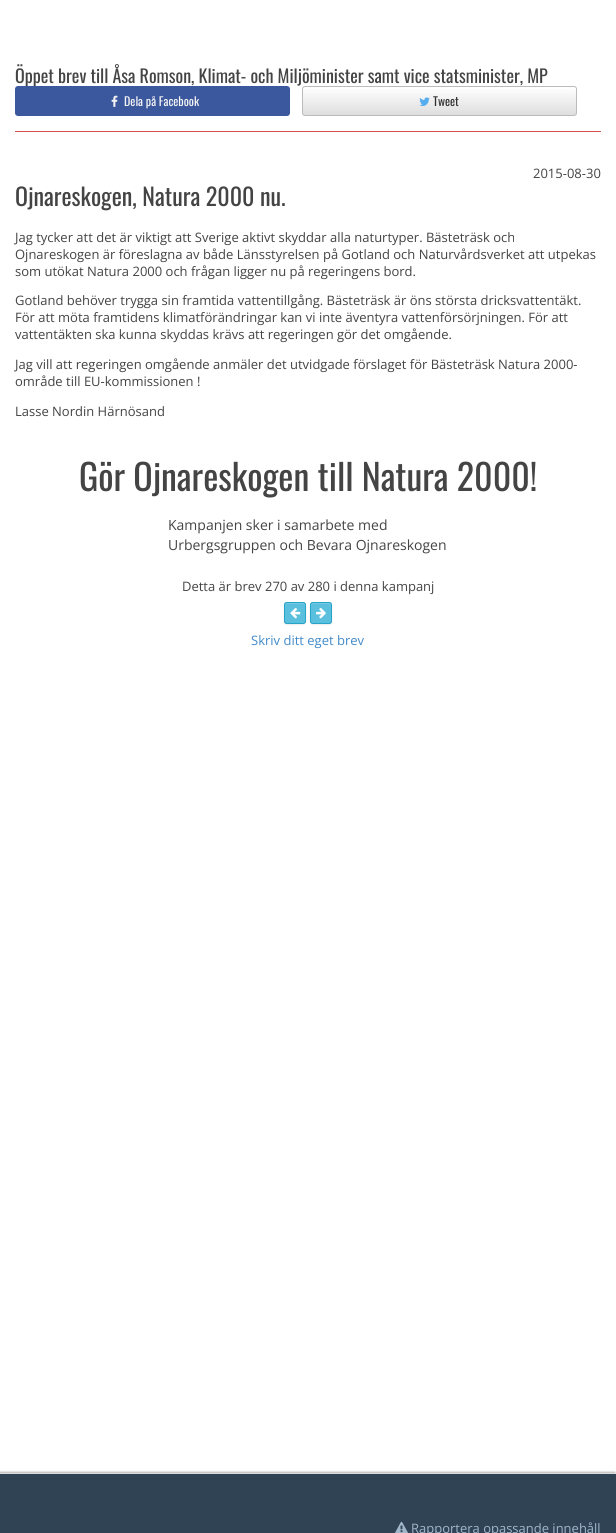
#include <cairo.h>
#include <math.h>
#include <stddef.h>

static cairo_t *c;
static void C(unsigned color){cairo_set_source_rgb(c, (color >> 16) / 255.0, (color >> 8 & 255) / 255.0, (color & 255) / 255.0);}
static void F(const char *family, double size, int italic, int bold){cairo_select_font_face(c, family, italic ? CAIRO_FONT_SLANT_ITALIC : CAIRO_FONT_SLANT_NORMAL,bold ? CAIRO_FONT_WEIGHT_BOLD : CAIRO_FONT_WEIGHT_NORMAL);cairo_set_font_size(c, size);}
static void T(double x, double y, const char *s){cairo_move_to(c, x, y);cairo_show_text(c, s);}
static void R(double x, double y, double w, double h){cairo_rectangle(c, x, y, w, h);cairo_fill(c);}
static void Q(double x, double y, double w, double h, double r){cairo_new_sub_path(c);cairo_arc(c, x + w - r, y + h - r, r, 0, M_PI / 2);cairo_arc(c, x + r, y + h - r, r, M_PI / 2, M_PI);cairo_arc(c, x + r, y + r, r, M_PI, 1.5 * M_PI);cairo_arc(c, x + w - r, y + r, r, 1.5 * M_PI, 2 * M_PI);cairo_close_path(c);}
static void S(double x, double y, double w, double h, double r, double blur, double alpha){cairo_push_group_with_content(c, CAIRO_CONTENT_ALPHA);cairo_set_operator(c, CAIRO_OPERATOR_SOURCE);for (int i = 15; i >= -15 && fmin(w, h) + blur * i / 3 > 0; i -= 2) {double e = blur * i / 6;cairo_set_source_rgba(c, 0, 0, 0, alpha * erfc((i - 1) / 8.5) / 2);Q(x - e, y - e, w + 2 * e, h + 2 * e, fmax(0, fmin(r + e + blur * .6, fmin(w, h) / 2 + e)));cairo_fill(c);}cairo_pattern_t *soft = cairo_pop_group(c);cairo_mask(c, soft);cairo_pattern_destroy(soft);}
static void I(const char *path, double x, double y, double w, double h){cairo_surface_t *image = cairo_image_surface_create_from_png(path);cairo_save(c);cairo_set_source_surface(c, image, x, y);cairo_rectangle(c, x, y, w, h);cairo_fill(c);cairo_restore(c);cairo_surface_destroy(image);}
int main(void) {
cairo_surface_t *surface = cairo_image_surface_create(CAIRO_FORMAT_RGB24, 616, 1533);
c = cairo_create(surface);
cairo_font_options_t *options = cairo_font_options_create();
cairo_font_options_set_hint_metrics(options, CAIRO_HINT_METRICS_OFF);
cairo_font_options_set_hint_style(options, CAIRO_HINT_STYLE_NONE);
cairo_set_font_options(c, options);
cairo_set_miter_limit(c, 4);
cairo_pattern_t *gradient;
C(0xffffff);
cairo_paint(c);
C(0xd74b4b);
R(15,131,586,1);
F("Oswald",18,0,0);
C(0x444444);
T(15,83,"Öppet brev till Åsa Romson, Klimat- och Miljöminister samt vice statsminister, MP");
C(0x3b579d);
Q(15,86,275,30,3);
cairo_fill(c);
I("1.png",111,95,7,12);
F("Oswald",12,0,0);
C(0xf4f4f4);
T(124,106,"Dela på Facebook");
gradient = cairo_pattern_create_linear(440,87,440,115);
cairo_pattern_add_color_stop_rgba(gradient,0,1,1,1,1);
cairo_pattern_add_color_stop_rgba(gradient,1,0.871,0.871,0.871,1);
cairo_set_source(c,gradient);
cairo_pattern_destroy(gradient);
R(303,89,273,26);
Q(302.5,86.5,274,29,2.5);
C(0xbbbbbb);
cairo_set_line_width(c,1);
cairo_stroke(c);
I("2.png",419,97,11,9);
C(0x333333);
T(433,106,"Tweet");
F("Open Sans",13,0,0);
C(0x444444);
T(533,178,"2015-08-30");
F("Oswald",24,0,0);
T(15,206,"Ojnareskogen, Natura 2000 nu.");
F("Open Sans",13,0,0);
T(15,242,"Jag tycker att det är viktigt att Sverige aktivt skyddar alla naturtyper. Bästeträsk och");
T(15,259,"Ojnareskogen är föreslagna av både Länsstyrelsen på Gotland och Naturvårdsverket att utpekas");
T(15,276,"som utökat Natura 2000 och frågan ligger nu på regeringens bord.");
T(15,305,"Gotland behöver trygga sin framtida vattentillgång. Bästeträsk är öns största dricksvattentäkt.");
T(15,322,"För att möta framtidens klimatförändringar kan vi inte äventyra vattenförsörjningen. För att");
T(15,339,"vattentäkten ska kunna skyddas krävs att regeringen gör det omgående.");
T(15,369,"Jag vill att regeringen omgående anmäler det utvidgade förslaget för Bästeträsk Natura 2000-");
T(15,386,"område till EU-kommissionen !");
T(15,416,"Lasse Nordin Härnösand");
F("Oswald",36,0,0);
T(79,491,"Gör Ojnareskogen till Natura 2000!");
F("Open Sans",14,0,0);
T(168,530,"Kampanjen sker i samarbete med");
T(168,550,"Urbergsgruppen och Bevara Ojnareskogen");
F("Open Sans",13,0,0);
T(182,591,"Detta är brev 270 av 280 i denna kampanj");
C(0x000000);
S(284,603,22,22,3,.5,.07);
C(0x5bc0de);
Q(284,602,22,22,3);
cairo_fill(c);
C(0x74c9e3);
cairo_new_path(c);
cairo_move_to(c,287,604);
cairo_line_to(c,300,604);
cairo_curve_to(c,303,604,304.5,604.5,305,606);
cairo_curve_to(c,305,602.5,303.5,603,300.5,603);
cairo_line_to(c,289.5,603);
cairo_curve_to(c,285.5,603,285,603,285,607);
cairo_curve_to(c,285,605.5,286,604,287,604);
cairo_close_path(c);
cairo_fill(c);
Q(284.5,602.5,21,21,2.5);
C(0x28a4c9);
cairo_stroke(c);
I("3.png",290,608,11,11);
C(0x000000);
S(310,603,22,22,3,.5,.07);
C(0x5bc0de);
Q(310,602,22,22,3);
cairo_fill(c);
C(0x74c9e3);
cairo_new_path(c);
cairo_move_to(c,313,604);
cairo_line_to(c,326,604);
cairo_curve_to(c,329,604,330.5,604.5,331,606);
cairo_curve_to(c,331,602.5,329.5,603,326.5,603);
cairo_line_to(c,315.5,603);
cairo_curve_to(c,311.5,603,311,603,311,607);
cairo_curve_to(c,311,605.5,312,604,313,604);
cairo_close_path(c);
cairo_fill(c);
Q(310.5,602.5,21,21,2.5);
C(0x28a4c9);
cairo_stroke(c);
I("4.png",316,608,10,11);
C(0x428bca);
T(251,645,"Skriv ditt eget brev");
C(0x000000);
S(-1,1472,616,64,0,1,.3);
C(0x2f4354);
R(0,1474,616,59);
C(0xdddddd);
R(0,1473,616,1);
I("5.png",395,1521,13,12);
C(0xa0b6c9);
T(411,1533,"Rapportera opassande innehåll");
cairo_surface_write_to_png(surface, "o.png");
cairo_font_options_destroy(options);
cairo_destroy(c);
cairo_surface_destroy(surface);
return 0;
}
